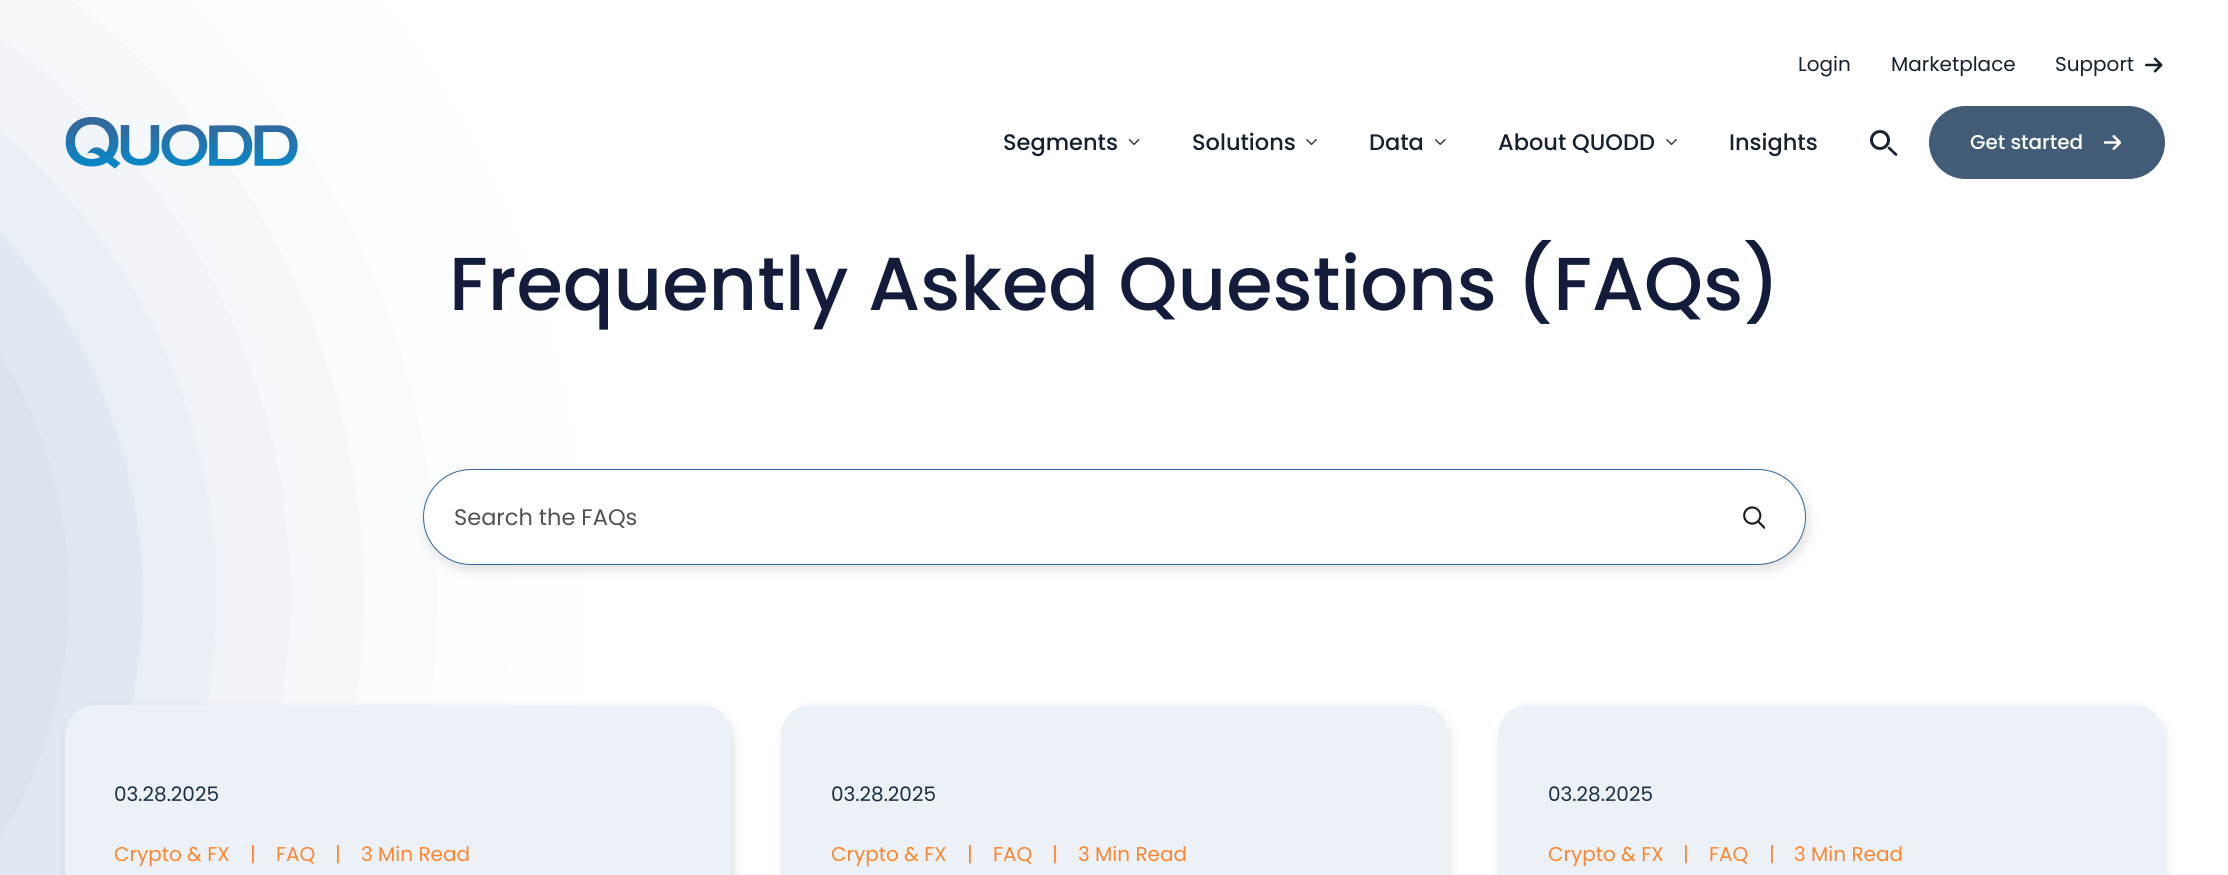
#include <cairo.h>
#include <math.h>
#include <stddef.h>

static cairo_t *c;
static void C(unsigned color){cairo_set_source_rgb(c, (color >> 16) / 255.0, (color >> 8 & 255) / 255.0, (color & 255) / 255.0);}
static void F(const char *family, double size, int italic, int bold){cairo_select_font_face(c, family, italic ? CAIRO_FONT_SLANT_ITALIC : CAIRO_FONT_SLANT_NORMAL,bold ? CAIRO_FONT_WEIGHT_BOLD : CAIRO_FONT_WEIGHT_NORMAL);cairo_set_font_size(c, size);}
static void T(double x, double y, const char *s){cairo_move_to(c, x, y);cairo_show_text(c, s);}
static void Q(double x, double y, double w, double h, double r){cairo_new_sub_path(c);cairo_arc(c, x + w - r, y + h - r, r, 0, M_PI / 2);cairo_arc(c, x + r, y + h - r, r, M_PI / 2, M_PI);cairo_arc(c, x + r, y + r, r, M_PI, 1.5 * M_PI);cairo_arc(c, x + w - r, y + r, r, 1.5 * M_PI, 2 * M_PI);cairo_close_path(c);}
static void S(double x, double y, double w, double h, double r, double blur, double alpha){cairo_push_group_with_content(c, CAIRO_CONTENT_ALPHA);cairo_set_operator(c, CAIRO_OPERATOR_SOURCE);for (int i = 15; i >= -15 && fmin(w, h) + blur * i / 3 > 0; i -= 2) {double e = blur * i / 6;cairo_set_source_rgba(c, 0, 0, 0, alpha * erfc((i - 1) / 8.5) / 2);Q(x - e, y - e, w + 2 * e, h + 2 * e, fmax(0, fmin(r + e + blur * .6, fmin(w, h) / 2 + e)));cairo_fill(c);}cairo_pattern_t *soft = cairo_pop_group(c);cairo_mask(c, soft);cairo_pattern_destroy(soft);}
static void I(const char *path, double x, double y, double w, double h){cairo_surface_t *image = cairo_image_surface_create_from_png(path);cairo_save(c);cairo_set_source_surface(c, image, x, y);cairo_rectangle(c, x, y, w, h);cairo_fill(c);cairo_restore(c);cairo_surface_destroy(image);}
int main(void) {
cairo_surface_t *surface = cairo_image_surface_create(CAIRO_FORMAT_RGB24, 2228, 875);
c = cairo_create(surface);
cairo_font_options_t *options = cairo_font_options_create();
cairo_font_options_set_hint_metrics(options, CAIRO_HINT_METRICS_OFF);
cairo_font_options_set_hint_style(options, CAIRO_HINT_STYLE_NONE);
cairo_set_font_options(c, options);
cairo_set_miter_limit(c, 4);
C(0xffffff);
cairo_paint(c);
F("Poppins",20,0,0);
C(0x15212e);
T(1798,71,"Login");
T(1891,71,"Marketplace");
T(2055,71,"Support");
I("1.png",2145,57,18,16);
C(0xc2d3e3);
S(-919,99,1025,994,497,221,1);
I("2.png",65,117,233,52);
F("Poppins Medium",22.5,0,0);
C(0x15212e);
T(1003,150,"Segments");
I("3.png",1128,139,12,6);
T(1192,150,"Solutions");
I("4.png",1306,139,11,6);
T(1369,150,"Data");
I("5.png",1435,139,11,6);
T(1498,150,"About QUODD");
I("4.png",1666,139,11,6);
T(1729,150,"Insights");
cairo_new_path(c);
cairo_arc(c,1880,140,8.5,0,2 * M_PI);
cairo_set_line_width(c,3);
cairo_stroke(c);
cairo_new_path(c);
cairo_move_to(c,1888,147);
cairo_curve_to(c,1889.5,145.5,1892.5,149.5,1893.5,150.5);
cairo_curve_to(c,1894,151,1898.5,154,1897,155.5);
cairo_curve_to(c,1895.5,157,1892.5,153,1891.5,152);
cairo_curve_to(c,1891,151.5,1886.5,148.5,1888,147);
cairo_close_path(c);
cairo_fill(c);
C(0x425b76);
Q(1929.5,106.5,235,72,36);
cairo_fill_preserve(c);
cairo_set_line_width(c,1);
cairo_stroke(c);
F("Poppins Medium",20,0,0);
C(0xffffff);
T(1970,149,"Get started");
I("6.png",2104,135,17,15);
F("Poppins Medium",75,0,0);
C(0x131c3a);
T(449,310,"Frequently Asked Questions (FAQs)");
C(0x000000);
S(425,474,1384,96,48,5.5,.12);
C(0xffffff);
Q(423.5,469.5,1382,95,47.5);
cairo_fill_preserve(c);
C(0x346796);
cairo_stroke(c);
F("Poppins",22.5,0,0);
C(0x53514f);
T(454,525,"Search the FAQs");
I("7.png",1743,506,22,23);
C(0x000000);
S(68,710,666,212,30,5.5,.12);
C(0xebf1f6);
Q(65,705,666,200,30);
cairo_fill(c);
F("Poppins",20,0,0);
C(0x182f45);
T(114,801,"03.28.2025");
C(0xfe852d);
T(114,861,"Crypto & FX");
T(250,861,"|");
T(276,861,"FAQ");
T(335,861,"|");
T(361,861,"3 Min Read");
C(0x000000);
S(784,710,666,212,30,5.5,.12);
C(0xebf1f6);
Q(781,705,667,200,30);
cairo_fill(c);
C(0x182f45);
T(831,801,"03.28.2025");
C(0xfe852d);
T(831,861,"Crypto & FX");
T(967,861,"|");
T(993,861,"FAQ");
T(1052,861,"|");
T(1078,861,"3 Min Read");
C(0x000000);
S(1500,710,666,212,30,5.5,.12);
C(0xebf1f6);
Q(1498,705,666,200,30);
cairo_fill(c);
C(0x182f45);
T(1548,801,"03.28.2025");
C(0xfe852d);
T(1548,861,"Crypto & FX");
T(1683,861,"|");
T(1709,861,"FAQ");
T(1769,861,"|");
T(1794,861,"3 Min Read");
cairo_surface_write_to_png(surface, "o.png");
cairo_font_options_destroy(options);
cairo_destroy(c);
cairo_surface_destroy(surface);
return 0;
}
